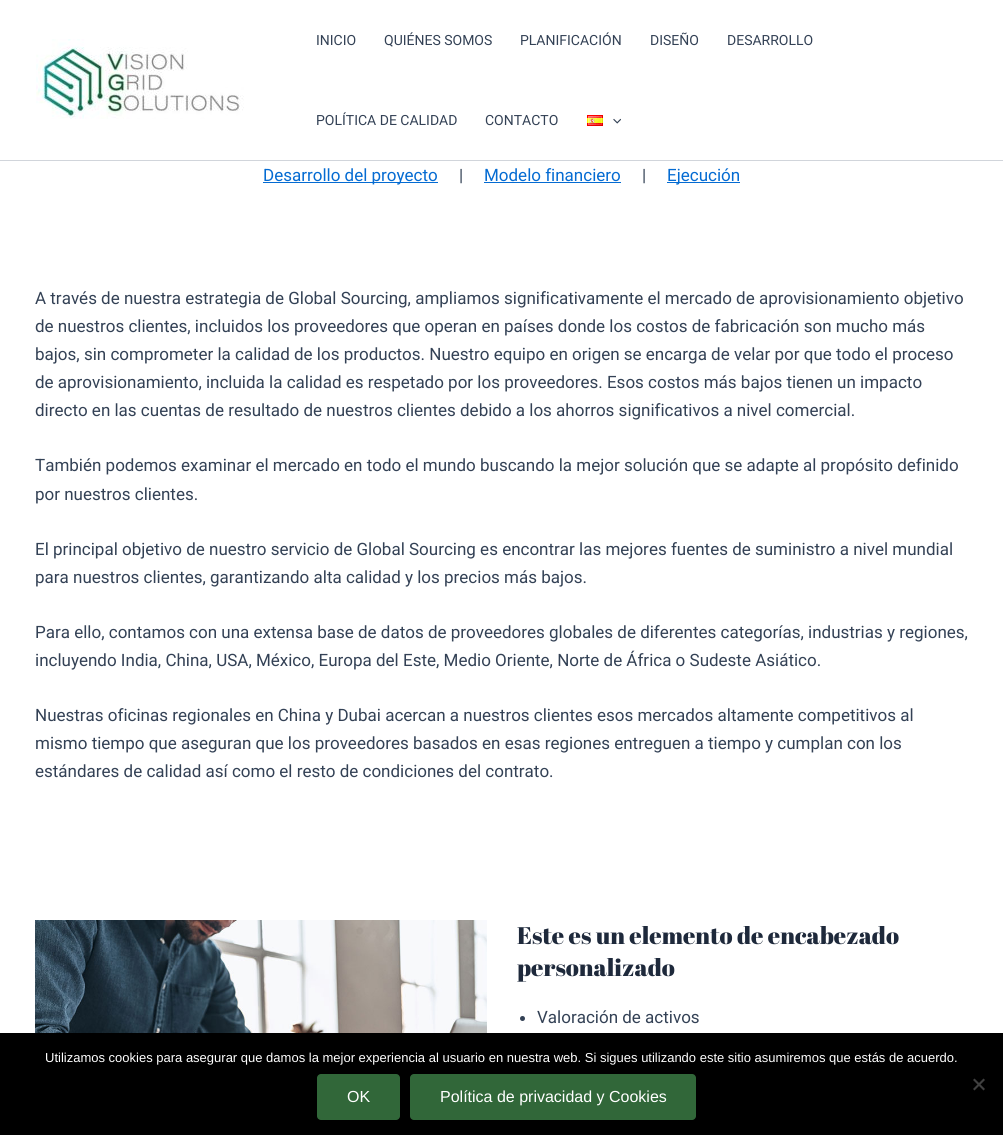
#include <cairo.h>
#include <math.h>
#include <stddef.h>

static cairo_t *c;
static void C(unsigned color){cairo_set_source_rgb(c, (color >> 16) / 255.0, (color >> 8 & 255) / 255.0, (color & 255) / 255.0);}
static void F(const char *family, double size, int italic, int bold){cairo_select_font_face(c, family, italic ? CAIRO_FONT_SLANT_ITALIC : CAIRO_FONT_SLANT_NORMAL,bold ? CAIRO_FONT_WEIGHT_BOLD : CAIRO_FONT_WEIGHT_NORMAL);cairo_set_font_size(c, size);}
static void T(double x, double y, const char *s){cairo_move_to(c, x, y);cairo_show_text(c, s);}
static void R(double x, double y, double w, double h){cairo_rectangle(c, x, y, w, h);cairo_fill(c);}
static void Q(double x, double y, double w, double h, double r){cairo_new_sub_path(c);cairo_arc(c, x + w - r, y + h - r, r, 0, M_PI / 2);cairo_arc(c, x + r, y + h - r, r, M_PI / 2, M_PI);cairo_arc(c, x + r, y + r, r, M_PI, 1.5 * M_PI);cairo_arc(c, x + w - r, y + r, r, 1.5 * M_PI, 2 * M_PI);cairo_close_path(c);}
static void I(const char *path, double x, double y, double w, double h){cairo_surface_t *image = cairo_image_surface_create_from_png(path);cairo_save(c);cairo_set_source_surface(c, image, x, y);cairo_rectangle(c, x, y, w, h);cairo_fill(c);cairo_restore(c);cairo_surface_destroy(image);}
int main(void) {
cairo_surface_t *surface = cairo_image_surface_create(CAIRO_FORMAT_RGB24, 1003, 1135);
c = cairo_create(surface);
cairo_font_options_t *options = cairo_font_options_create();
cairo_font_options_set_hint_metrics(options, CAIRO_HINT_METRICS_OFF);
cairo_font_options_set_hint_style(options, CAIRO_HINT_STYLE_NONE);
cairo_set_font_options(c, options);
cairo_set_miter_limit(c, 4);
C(0xffffff);
cairo_paint(c);
C(0xd1d5db);
R(0,160,1003,1);
I("1.png",36,39,208,80);
F("Roboto",14,0,0);
C(0x334155);
T(316,45,"INICIO");
T(384,45,"QUIÉNES SOMOS");
T(520,45,"PLANIFICACIÓN");
T(650,45,"DISEÑO");
T(727,45,"DESARROLLO");
T(316,125,"POLÍTICA DE CALIDAD");
T(485,125,"CONTACTO");
I("2.png",587,115,16,11);
I("3.png",613,118,8,6);
C(0x046bd2);
R(263,182,175,1);
F("Roboto",17,0,0);
T(263,181,"Desarrollo del proyecto");
C(0x334155);
T(459,181,"|");
C(0x046bd2);
T(484,181,"Modelo financiero");
R(484,182,137,1);
C(0x334155);
T(642,181,"|");
C(0x046bd2);
R(667,182,73,1);
T(667,181,"Ejecución");
C(0x334155);
T(35,304,"A través de nuestra estrategia de Global Sourcing, ampliamos significativamente el mercado de aprovisionamiento objetivo");
T(35,332,"de nuestros clientes, incluidos los proveedores que operan en países donde los costos de fabricación son mucho más");
T(35,360,"bajos, sin comprometer la calidad de los productos. Nuestro equipo en origen se encarga de velar por que todo el proceso");
T(35,388,"de aprovisionamiento, incluida la calidad es respetado por los proveedores. Esos costos más bajos tienen un impacto");
T(35,416,"directo en las cuentas de resultado de nuestros clientes debido a los ahorros significativos a nivel comercial.");
T(35,471,"También podemos examinar el mercado en todo el mundo buscando la mejor solución que se adapte al propósito definido");
T(35,500,"por nuestros clientes.");
T(35,555,"El principal objetivo de nuestro servicio de Global Sourcing es encontrar las mejores fuentes de suministro a nivel mundial");
T(35,583,"para nuestros clientes, garantizando alta calidad y los precios más bajos.");
T(35,638,"Para ello, contamos con una extensa base de datos de proveedores globales de diferentes categorías, industrias y regiones,");
T(35,666,"incluyendo India, China, USA, México, Europa del Este, Medio Oriente, Norte de África o Sudeste Asiático.");
T(35,721,"Nuestras oficinas regionales en China y Dubai acercan a nuestros clientes esos mercados altamente competitivos al");
T(35,749,"mismo tiempo que aseguran que los proveedores basados en esas regiones entreguen a tiempo y cumplan con los");
T(35,777,"estándares de calidad así como el resto de condiciones del contrato.");
I("4.png",35,920,452,113);
F("Abril Fatface",24,0,0);
C(0x1e293b);
T(517,944,"Este es un elemento de encabezado");
T(517,976,"personalizado");
C(0x334155);
cairo_new_path(c);
cairo_arc(c,522.5,1018.5,2.5,0,2 * M_PI);
cairo_fill(c);
F("Roboto",17,0,0);
T(537,1023,"Valoración de activos");
C(0x000000);
R(0,1033,1003,102);
F("Liberation Sans",13,0,0);
C(0xffffff);
T(45,1062,"Utilizamos cookies para asegurar que damos la mejor experiencia al usuario en nuestra web. Si sigues utilizando este sitio asumiremos que estás de acuerdo.");
C(0x404040);
cairo_new_path(c);
cairo_move_to(c,983.5,1078.5);
cairo_line_to(c,985,1080);
cairo_line_to(c,974.5,1090.5);
cairo_line_to(c,973,1089);
cairo_close_path(c);
cairo_fill(c);
cairo_new_path(c);
cairo_move_to(c,973,1080);
cairo_line_to(c,974.5,1078.5);
cairo_line_to(c,985,1089);
cairo_line_to(c,983.5,1090.5);
cairo_close_path(c);
cairo_fill(c);
C(0x316739);
Q(317,1074,83,46,4);
cairo_fill(c);
F("Liberation Sans",16,0,0);
C(0xffffff);
T(347,1102,"OK");
C(0x316739);
Q(410,1074,286,46,4);
cairo_fill(c);
C(0xffffff);
T(440,1102,"Política de privacidad y Cookies");
cairo_surface_write_to_png(surface, "o.png");
cairo_font_options_destroy(options);
cairo_destroy(c);
cairo_surface_destroy(surface);
return 0;
}
